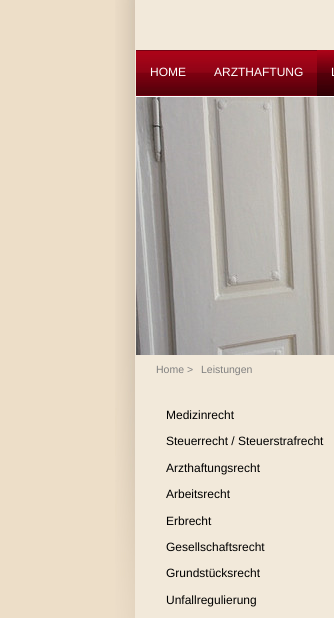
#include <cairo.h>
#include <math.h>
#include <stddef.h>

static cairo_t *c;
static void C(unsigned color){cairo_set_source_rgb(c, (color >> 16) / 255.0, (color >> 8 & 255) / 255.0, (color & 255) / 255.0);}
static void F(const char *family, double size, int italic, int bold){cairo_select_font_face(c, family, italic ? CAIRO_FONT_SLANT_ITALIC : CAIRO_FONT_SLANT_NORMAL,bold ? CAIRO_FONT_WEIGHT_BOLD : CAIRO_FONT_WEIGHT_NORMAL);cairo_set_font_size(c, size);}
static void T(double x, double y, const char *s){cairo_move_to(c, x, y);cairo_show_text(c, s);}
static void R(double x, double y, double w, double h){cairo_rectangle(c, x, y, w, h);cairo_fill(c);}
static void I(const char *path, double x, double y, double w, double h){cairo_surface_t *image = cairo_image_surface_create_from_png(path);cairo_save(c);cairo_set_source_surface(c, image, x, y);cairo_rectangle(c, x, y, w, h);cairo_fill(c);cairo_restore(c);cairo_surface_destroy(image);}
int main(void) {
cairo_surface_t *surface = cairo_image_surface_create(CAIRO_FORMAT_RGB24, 334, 618);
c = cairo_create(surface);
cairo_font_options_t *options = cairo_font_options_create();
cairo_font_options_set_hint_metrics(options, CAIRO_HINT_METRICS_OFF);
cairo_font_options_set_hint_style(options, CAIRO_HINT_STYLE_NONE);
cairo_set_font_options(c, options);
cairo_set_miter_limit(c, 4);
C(0xeddec8);
cairo_paint(c);
I("1.png",115,0,219,618);
I("2.png",136,50,181,46);
F("Liberation Sans",12,0,0);
C(0xffffff);
T(150,76,"HOME");
T(214,76,"ARZTHAFTUNG");
I("3.png",317,50,17,46);
T(331,76,"L");
R(136,96,198,1);
I("4.png",136,97,198,258);
F("Liberation Sans",10.5,0,0);
C(0x808080);
T(156,373,"Home >");
T(201,373,"Leistungen");
F("Liberation Sans",12,0,0);
C(0x000000);
T(166,419,"Medizinrecht");
T(166,445,"Steuerrecht / Steuerstrafrecht");
T(166,472,"Arzthaftungsrecht");
T(166,498,"Arbeitsrecht");
T(166,525,"Erbrecht");
T(166,551,"Gesellschaftsrecht");
T(166,577,"Grundstücksrecht");
T(166,604,"Unfallregulierung");
cairo_surface_write_to_png(surface, "o.png");
cairo_font_options_destroy(options);
cairo_destroy(c);
cairo_surface_destroy(surface);
return 0;
}
